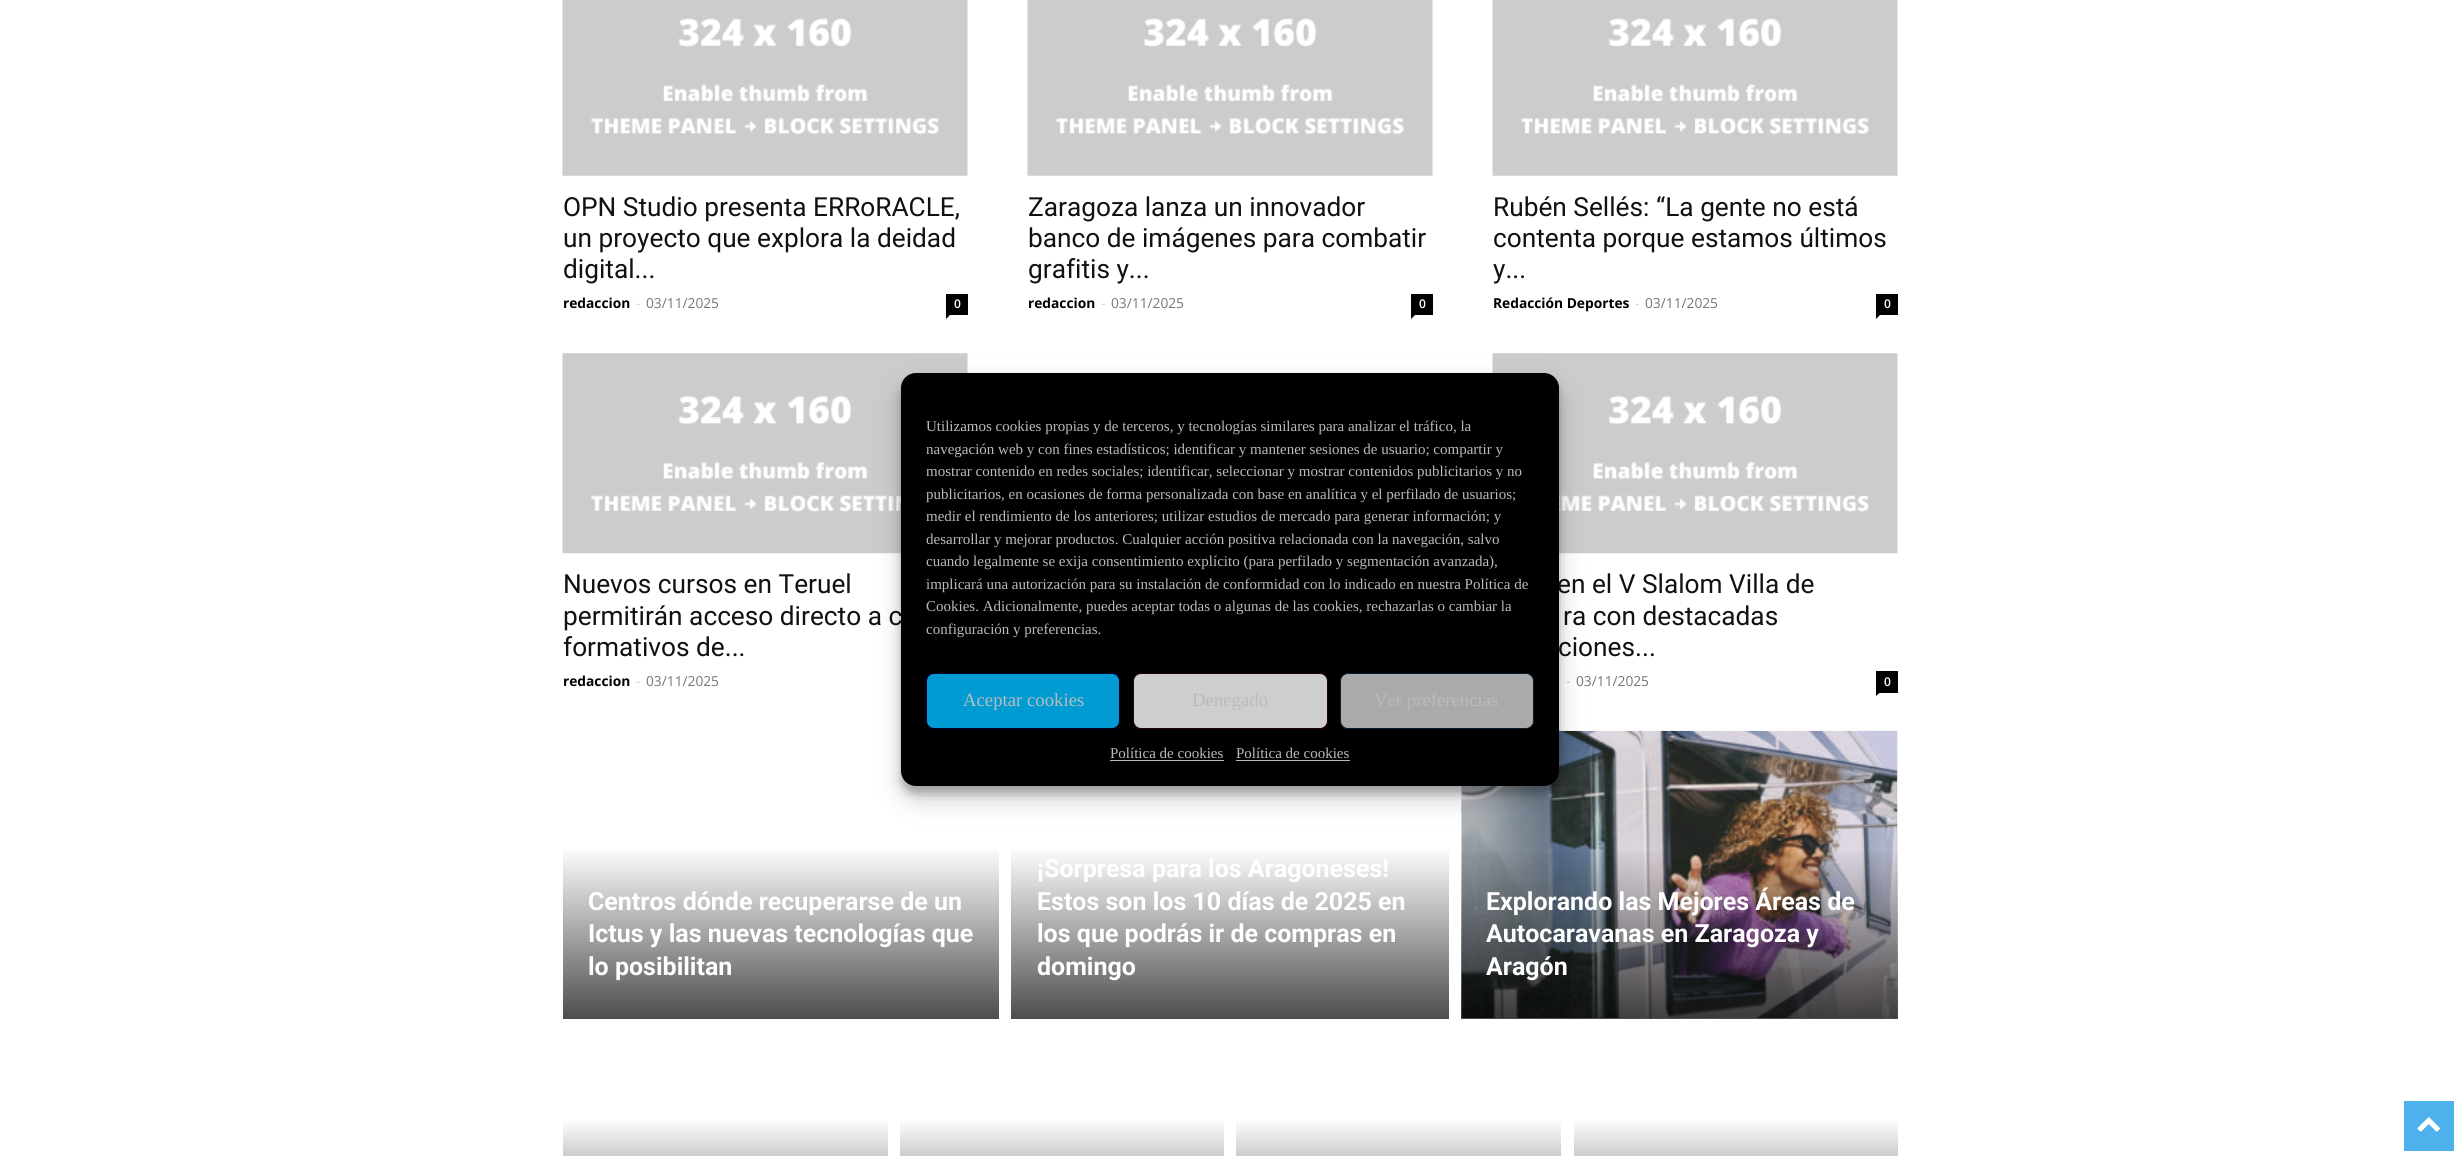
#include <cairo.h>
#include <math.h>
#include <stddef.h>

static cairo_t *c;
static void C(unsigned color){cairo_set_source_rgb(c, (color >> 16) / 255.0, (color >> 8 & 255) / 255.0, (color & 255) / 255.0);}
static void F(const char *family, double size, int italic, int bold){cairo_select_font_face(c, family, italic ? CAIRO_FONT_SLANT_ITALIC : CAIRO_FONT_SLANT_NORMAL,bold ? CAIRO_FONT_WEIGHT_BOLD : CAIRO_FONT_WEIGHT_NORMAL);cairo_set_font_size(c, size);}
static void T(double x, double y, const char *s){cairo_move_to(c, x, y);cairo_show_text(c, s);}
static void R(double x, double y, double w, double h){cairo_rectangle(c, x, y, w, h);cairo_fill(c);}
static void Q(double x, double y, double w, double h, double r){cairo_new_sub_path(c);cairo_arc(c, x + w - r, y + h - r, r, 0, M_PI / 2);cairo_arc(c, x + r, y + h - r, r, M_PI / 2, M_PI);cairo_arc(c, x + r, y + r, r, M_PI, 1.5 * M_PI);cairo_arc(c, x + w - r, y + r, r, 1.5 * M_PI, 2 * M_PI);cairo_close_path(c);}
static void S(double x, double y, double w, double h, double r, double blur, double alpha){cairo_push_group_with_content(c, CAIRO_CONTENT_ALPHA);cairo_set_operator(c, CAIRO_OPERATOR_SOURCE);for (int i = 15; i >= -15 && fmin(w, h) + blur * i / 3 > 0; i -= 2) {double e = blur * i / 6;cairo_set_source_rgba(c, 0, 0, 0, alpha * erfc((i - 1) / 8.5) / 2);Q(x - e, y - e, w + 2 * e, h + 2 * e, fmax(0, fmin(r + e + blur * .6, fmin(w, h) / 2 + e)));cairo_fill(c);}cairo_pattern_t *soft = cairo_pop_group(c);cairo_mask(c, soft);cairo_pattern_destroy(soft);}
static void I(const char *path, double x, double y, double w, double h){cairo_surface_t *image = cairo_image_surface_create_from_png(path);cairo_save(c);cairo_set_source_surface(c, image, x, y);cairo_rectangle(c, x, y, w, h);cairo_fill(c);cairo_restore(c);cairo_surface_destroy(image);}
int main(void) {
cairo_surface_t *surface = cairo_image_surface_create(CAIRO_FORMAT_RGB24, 2460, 1156);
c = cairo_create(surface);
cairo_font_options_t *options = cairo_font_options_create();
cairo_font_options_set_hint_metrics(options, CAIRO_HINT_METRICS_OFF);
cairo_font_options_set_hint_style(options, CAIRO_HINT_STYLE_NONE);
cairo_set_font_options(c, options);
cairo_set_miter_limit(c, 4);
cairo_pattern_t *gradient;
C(0xffffff);
cairo_paint(c);
I("1.png",562,0,406,176);
F("Roboto",26.25,0,0);
C(0x111111);
T(563,216,"OPN Studio presenta ERRoRACLE,");
T(563,247,"un proyecto que explora la deidad");
T(563,278,"digital...");
F("Open Sans",13.75,0,1);
C(0x000000);
T(563,308,"redaccion");
F("Open Sans",13.75,0,0);
C(0xcccccc);
T(636,308,"-");
C(0x767676);
T(646,308,"03/11/2025");
C(0x000000);
R(946,294,22,21);
F("Open Sans SemiBold",12,0,0);
C(0xffffff);
T(954,308,"0");
C(0x000000);
cairo_new_path(c);
cairo_move_to(c,946,315);
cairo_line_to(c,950,315);
cairo_line_to(c,946,319);
cairo_close_path(c);
cairo_fill(c);
I("2.png",1027,0,406,176);
F("Roboto",26.25,0,0);
C(0x111111);
T(1028,216,"Zaragoza lanza un innovador");
T(1028,247,"banco de imágenes para combatir");
T(1028,278,"grafitis y...");
F("Open Sans",13.75,0,1);
C(0x000000);
T(1028,308,"redaccion");
F("Open Sans",13.75,0,0);
C(0xcccccc);
T(1101,308,"-");
C(0x767676);
T(1111,308,"03/11/2025");
C(0x000000);
R(1411,294,22,21);
F("Open Sans SemiBold",12,0,0);
C(0xffffff);
T(1419,308,"0");
C(0x000000);
cairo_new_path(c);
cairo_move_to(c,1411,315);
cairo_line_to(c,1415,315);
cairo_line_to(c,1411,319);
cairo_close_path(c);
cairo_fill(c);
I("3.png",1492,0,406,176);
F("Roboto",26.25,0,0);
C(0x111111);
T(1493,216,"Rubén Sellés: “La gente no está");
T(1493,247,"contenta porque estamos últimos");
T(1493,278,"y...");
F("Open Sans",13.75,0,1);
C(0x000000);
T(1493,308,"Redacción Deportes");
F("Open Sans",13.75,0,0);
C(0xcccccc);
T(1635,308,"-");
C(0x767676);
T(1645,308,"03/11/2025");
C(0x000000);
R(1876,294,22,21);
F("Open Sans SemiBold",12,0,0);
C(0xffffff);
T(1884,308,"0");
C(0x000000);
cairo_new_path(c);
cairo_move_to(c,1876,315);
cairo_line_to(c,1880,315);
cairo_line_to(c,1876,319);
cairo_close_path(c);
cairo_fill(c);
I("4.png",562,353,406,201);
F("Roboto",26.25,0,0);
C(0x111111);
T(563,593,"Nuevos cursos en Teruel");
T(563,625,"permitirán acceso directo a c");
T(563,656,"formativos de...");
F("Open Sans",13.75,0,1);
C(0x000000);
T(563,686,"redaccion");
F("Open Sans",13.75,0,0);
C(0xcccccc);
T(636,686,"-");
C(0x767676);
T(646,686,"03/11/2025");
I("5.png",1492,353,406,201);
F("Roboto",26.25,0,0);
C(0x111111);
T(1557,593,"en el V Slalom Villa de");
T(1563,625,"ra con destacadas");
T(1558,656,"ciones...");
F("Open Sans",13.75,0,0);
C(0xcccccc);
T(1566,686,"-");
C(0x767676);
T(1576,686,"03/11/2025");
C(0x000000);
R(1876,671,22,22);
F("Open Sans SemiBold",12,0,0);
C(0xffffff);
T(1884,686,"0");
C(0x000000);
cairo_new_path(c);
cairo_move_to(c,1876,692.5);
cairo_line_to(c,1880,692.5);
cairo_line_to(c,1876,696);
cairo_close_path(c);
cairo_fill(c);
gradient = cairo_pattern_create_linear(781,1019,781,731);
cairo_pattern_add_color_stop_rgba(gradient,0,0.302,0.302,0.302,1);
cairo_pattern_add_color_stop_rgba(gradient,.6,1,1,1,1);
cairo_pattern_add_color_stop_rgba(gradient,1,1,1,1,1);
cairo_set_source(c,gradient);
cairo_pattern_destroy(gradient);
R(563,849,436,170);
F("Roboto",25,0,1);
C(0xffffff);
T(588,910,"Centros dónde recuperarse de un");
T(588,942,"Ictus y las nuevas tecnologías que");
T(588,975,"lo posibilitan");
gradient = cairo_pattern_create_linear(1230,1019,1230,731);
cairo_pattern_add_color_stop_rgba(gradient,0,0.302,0.302,0.302,1);
cairo_pattern_add_color_stop_rgba(gradient,.6,1,1,1,1);
cairo_pattern_add_color_stop_rgba(gradient,1,1,1,1,1);
cairo_set_source(c,gradient);
cairo_pattern_destroy(gradient);
R(1011,849,438,170);
C(0xffffff);
T(1037,877,"¡Sorpresa para los Aragoneses!");
T(1037,910,"Estos son los 10 días de 2025 en");
T(1037,942,"los que podrás ir de compras en");
T(1037,975,"domingo");
I("6.png",1461,730,437,289);
gradient = cairo_pattern_create_linear(1679,1019,1679,731);
cairo_pattern_add_color_stop_rgba(gradient,0,0,0,0,.7);
cairo_pattern_add_color_stop_rgba(gradient,.6,0,0,0,0);
cairo_pattern_add_color_stop_rgba(gradient,1,0,0,0,0);
cairo_set_source(c,gradient);
cairo_pattern_destroy(gradient);
R(1461,852,437,167);
C(0xffffff);
T(1486,910,"Explorando las Mejores Áreas de");
T(1486,942,"Autocaravanas en Zaragoza y");
T(1486,975,"Aragón");
gradient = cairo_pattern_create_linear(725,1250,725,1031);
cairo_pattern_add_color_stop_rgba(gradient,0,0.302,0.302,0.302,1);
cairo_pattern_add_color_stop_rgba(gradient,.6,1,1,1,1);
cairo_pattern_add_color_stop_rgba(gradient,1,1,1,1,1);
cairo_set_source(c,gradient);
cairo_pattern_destroy(gradient);
R(563,1120,325,36);
gradient = cairo_pattern_create_linear(1062,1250,1062,1031);
cairo_pattern_add_color_stop_rgba(gradient,0,0.302,0.302,0.302,1);
cairo_pattern_add_color_stop_rgba(gradient,.6,1,1,1,1);
cairo_pattern_add_color_stop_rgba(gradient,1,1,1,1,1);
cairo_set_source(c,gradient);
cairo_pattern_destroy(gradient);
R(900,1120,324,36);
gradient = cairo_pattern_create_linear(1399,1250,1399,1031);
cairo_pattern_add_color_stop_rgba(gradient,0,0.302,0.302,0.302,1);
cairo_pattern_add_color_stop_rgba(gradient,.6,1,1,1,1);
cairo_pattern_add_color_stop_rgba(gradient,1,1,1,1,1);
cairo_set_source(c,gradient);
cairo_pattern_destroy(gradient);
R(1236,1120,325,36);
gradient = cairo_pattern_create_linear(1736,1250,1736,1031);
cairo_pattern_add_color_stop_rgba(gradient,0,0.302,0.302,0.302,1);
cairo_pattern_add_color_stop_rgba(gradient,.6,1,1,1,1);
cairo_pattern_add_color_stop_rgba(gradient,1,1,1,1,1);
cairo_set_source(c,gradient);
cairo_pattern_destroy(gradient);
R(1574,1120,324,36);
C(0x000000);
S(901,380,658,414,15,4,.23);
S(901,385,658,414,15,12.5,.19);
C(0x000000);
Q(901,373,658,413,15);
cairo_fill(c);
F("Liberation Serif",15,0,0);
C(0xbbbbbb);
T(926,431,"Utilizamos cookies propias y de terceros, y tecnologías similares para analizar el tráfico, la");
T(926,454,"navegación web y con fines estadísticos; identificar y mantener sesiones de usuario; compartir y");
T(926,476,"mostrar contenido en redes sociales; identificar, seleccionar y mostrar contenidos publicitarios y no");
T(926,499,"publicitarios, en ocasiones de forma personalizada con base en analítica y el perfilado de usuarios;");
T(926,521,"medir el rendimiento de los anteriores; utilizar estudios de mercado para generar información; y");
T(926,544,"desarrollar y mejorar productos. Cualquier acción positiva relacionada con la navegación, salvo");
T(926,566,"cuando legalmente se exija consentimiento explícito (para perfilado y segmentación avanzada),");
T(926,589,"implicará una autorización para su instalación de conformidad con lo indicado en nuestra Política de");
T(926,611,"Cookies. Adicionalmente, puedes aceptar todas o algunas de las cookies, rechazarlas o cambiar la");
T(926,634,"configuración y preferencias.");
C(0x009bd3);
Q(926.5,673.5,193,55,7.5);
cairo_fill_preserve(c);
C(0x090030);
cairo_set_line_width(c,1);
cairo_stroke(c);
F("Liberation Serif",18.75,0,0);
C(0xbbbbbb);
T(963,706,"Aceptar cookies");
C(0xcecece);
Q(1133.5,673.5,194,55,7.5);
cairo_fill_preserve(c);
C(0x230200);
cairo_stroke(c);
C(0xbbbbbb);
T(1192,706,"Denegado");
C(0xaaaaaa);
Q(1340.5,673.5,193,55,7.5);
cairo_fill_preserve(c);
C(0x081e2e);
cairo_stroke(c);
C(0xbbbbbb);
T(1374,706,"Ver preferencias");
F("Liberation Serif",15,0,0);
T(1110,758,"Política de cookies");
R(1110,760,114,1);
T(1236,758,"Política de cookies");
R(1236,760,114,1);
C(0x4db2ec);
R(2404,1101,50,50);
I("7.png",2417,1117,23,15);
cairo_surface_write_to_png(surface, "o.png");
cairo_font_options_destroy(options);
cairo_destroy(c);
cairo_surface_destroy(surface);
return 0;
}
